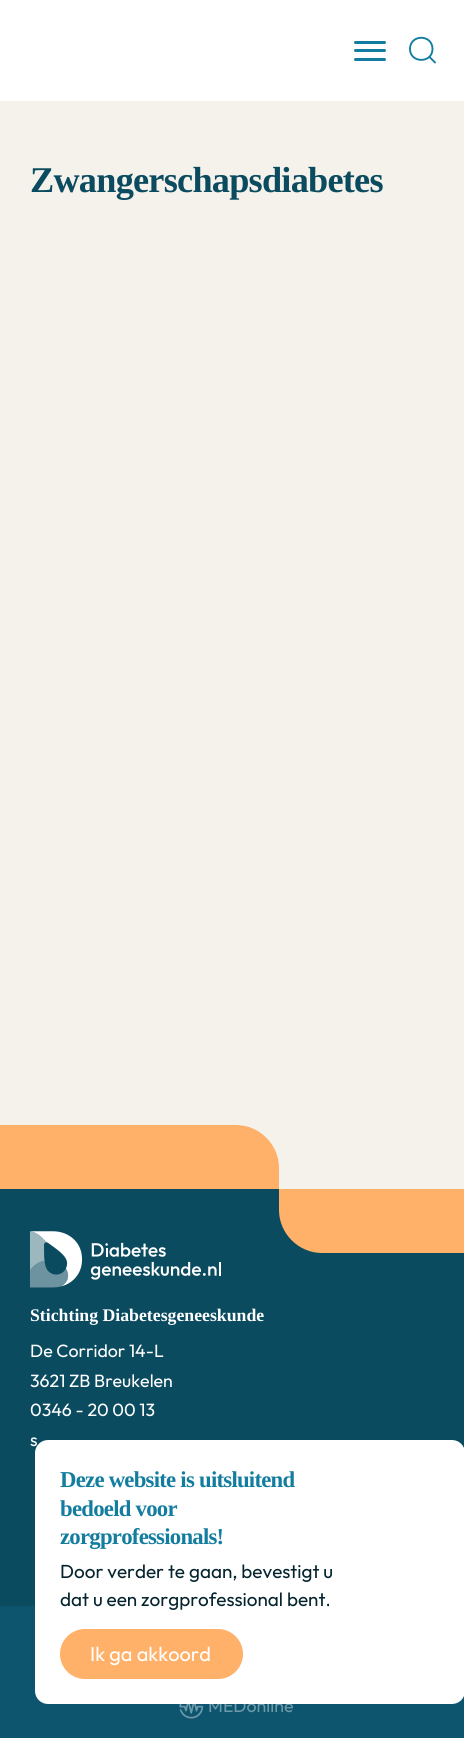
#include <cairo.h>
#include <math.h>
#include <stddef.h>

static cairo_t *c;
static void C(unsigned color){cairo_set_source_rgb(c, (color >> 16) / 255.0, (color >> 8 & 255) / 255.0, (color & 255) / 255.0);}
static void F(const char *family, double size, int italic, int bold){cairo_select_font_face(c, family, italic ? CAIRO_FONT_SLANT_ITALIC : CAIRO_FONT_SLANT_NORMAL,bold ? CAIRO_FONT_WEIGHT_BOLD : CAIRO_FONT_WEIGHT_NORMAL);cairo_set_font_size(c, size);}
static void T(double x, double y, const char *s){cairo_move_to(c, x, y);cairo_show_text(c, s);}
static void L(double x, double y, const char *s, double letter, double word){cairo_move_to(c, x, y);while (*s) {char ch[5] = {0};int n = 0;do ch[n++] = *s++; while ((*s & 0xC0) == 0x80);cairo_show_text(c, ch);cairo_rel_move_to(c, letter + word * (*ch == ' '), 0);}}
static void R(double x, double y, double w, double h){cairo_rectangle(c, x, y, w, h);cairo_fill(c);}
static void Q(double x, double y, double w, double h, double r){cairo_new_sub_path(c);cairo_arc(c, x + w - r, y + h - r, r, 0, M_PI / 2);cairo_arc(c, x + r, y + h - r, r, M_PI / 2, M_PI);cairo_arc(c, x + r, y + r, r, M_PI, 1.5 * M_PI);cairo_arc(c, x + w - r, y + r, r, 1.5 * M_PI, 2 * M_PI);cairo_close_path(c);}
static void I(const char *path, double x, double y, double w, double h){cairo_surface_t *image = cairo_image_surface_create_from_png(path);cairo_save(c);cairo_set_source_surface(c, image, x, y);cairo_rectangle(c, x, y, w, h);cairo_fill(c);cairo_restore(c);cairo_surface_destroy(image);}
int main(void) {
cairo_surface_t *surface = cairo_image_surface_create(CAIRO_FORMAT_RGB24, 464, 1738);
c = cairo_create(surface);
cairo_font_options_t *options = cairo_font_options_create();
cairo_font_options_set_hint_metrics(options, CAIRO_HINT_METRICS_OFF);
cairo_font_options_set_hint_style(options, CAIRO_HINT_STYLE_NONE);
cairo_set_font_options(c, options);
cairo_set_miter_limit(c, 4);
C(0xf5f1eb);
cairo_paint(c);
C(0xffffff);
R(0,0,464,101);
C(0x137da0);
Q(354,41,32,3,1.5);
cairo_fill(c);
Q(354,49,32,3,1.5);
cairo_fill(c);
Q(354,58,32,3,1.5);
cairo_fill(c);
cairo_new_path(c);
cairo_move_to(c,429.5,57);
cairo_line_to(c,435,62.5);
cairo_set_line_width(c,1.9);
cairo_set_line_cap(c,CAIRO_LINE_CAP_ROUND);
cairo_set_line_join(c,CAIRO_LINE_JOIN_ROUND);
cairo_stroke(c);
cairo_new_path(c);
cairo_move_to(c,432.5,49);
cairo_curve_to(c,432.5,34,410,34,410,49);
cairo_curve_to(c,410,63.5,432.5,63.5,432.5,49);
cairo_close_path(c);
cairo_set_line_cap(c,CAIRO_LINE_CAP_BUTT);
cairo_stroke(c);
F("Liberation Serif",36.25,0,1);
C(0x0b4b60);
L(30,192,"Zwangerschapsdiabetes",-.75,0);
C(0xffb069);
cairo_new_path(c);
cairo_move_to(c,0,1125);
cairo_line_to(c,236,1125);
cairo_curve_to(c,259.5,1125,279,1144.5,279,1168);
cairo_line_to(c,279,1189);
cairo_line_to(c,0,1189);
cairo_close_path(c);
cairo_fill(c);
C(0x0b4b60);
R(0,1189,464,417);
C(0xffb069);
cairo_new_path(c);
cairo_move_to(c,279,1189);
cairo_line_to(c,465,1189);
cairo_line_to(c,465,1253);
cairo_line_to(c,322,1253);
cairo_curve_to(c,298.5,1253,279,1233.5,279,1210);
cairo_close_path(c);
cairo_fill(c);
I("1.png",30,1231,191,57);
F("Liberation Serif",17.75,0,1);
C(0xffffff);
T(30,1321,"Stichting Diabetesgeneeskunde");
F("Outfit",17.75,0,0);
T(30,1357,"De Corridor 14-L");
T(30,1387,"3621 ZB Breukelen");
T(30,1416,"0346 - 20 00 13");
T(30,1446,"s");
C(0x0d556e);
R(0,1606,464,132);
I("2.png",179,1704,25,15);
C(0x6e99a8);
T(208,1712,"MEDonline");
C(0xffffff);
Q(35,1440,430,264,13);
cairo_fill(c);
F("Liberation Serif",22.75,0,1);
C(0x137da0);
L(60,1487,"Deze website is uitsluitend",-.75,0);
L(60,1516,"bedoeld voor",-.75,0);
L(60,1544,"zorgprofessionals!",-.75,0);
F("Outfit",18.9,0,0);
C(0x05242e);
T(60,1578,"Door verder te gaan, bevestigt u");
T(60,1606,"dat u een zorgprofessional bent.");
C(0xffb069);
Q(60,1629,183,50,25);
cairo_fill(c);
F("Outfit",20,0,0);
C(0xffffff);
T(90,1661,"Ik ga akkoord");
cairo_surface_write_to_png(surface, "o.png");
cairo_font_options_destroy(options);
cairo_destroy(c);
cairo_surface_destroy(surface);
return 0;
}
